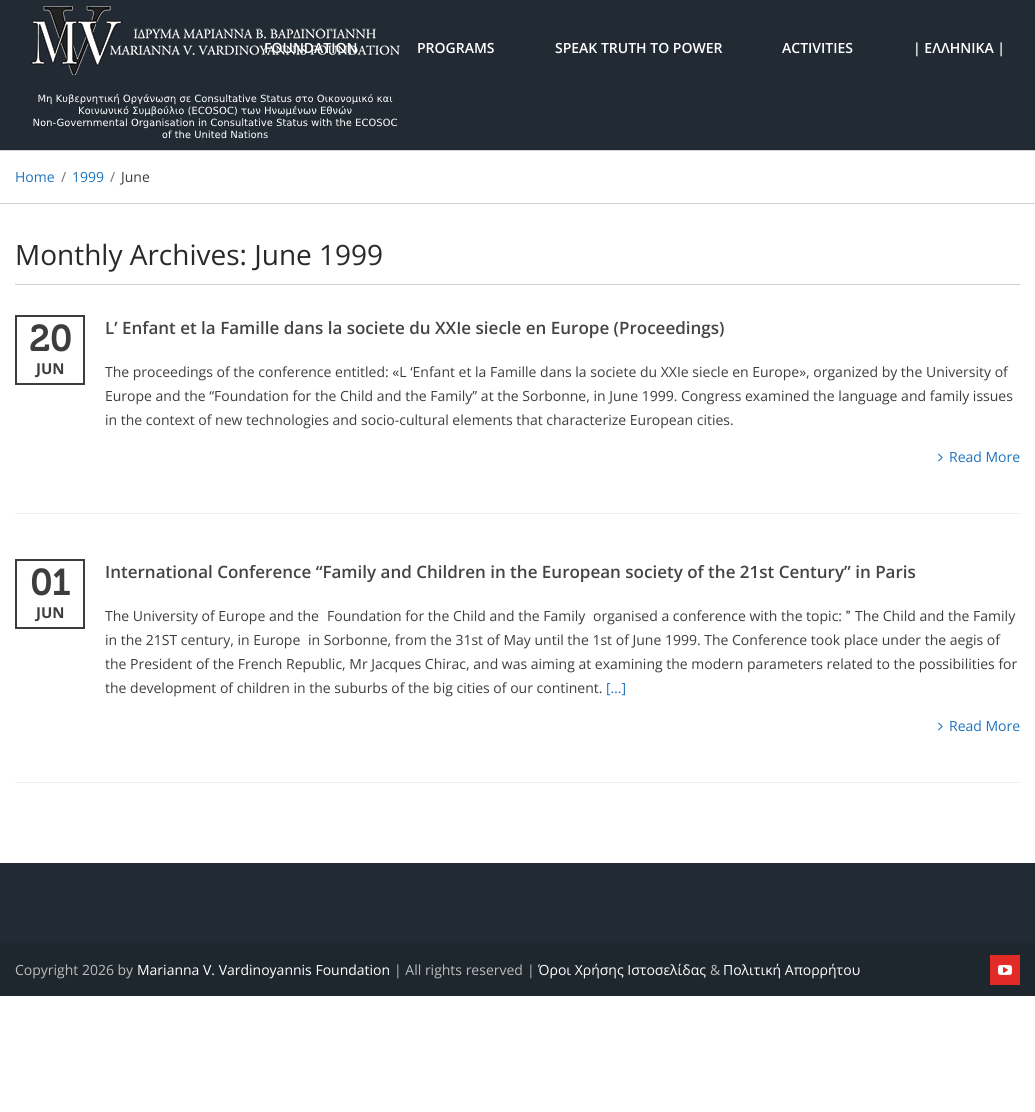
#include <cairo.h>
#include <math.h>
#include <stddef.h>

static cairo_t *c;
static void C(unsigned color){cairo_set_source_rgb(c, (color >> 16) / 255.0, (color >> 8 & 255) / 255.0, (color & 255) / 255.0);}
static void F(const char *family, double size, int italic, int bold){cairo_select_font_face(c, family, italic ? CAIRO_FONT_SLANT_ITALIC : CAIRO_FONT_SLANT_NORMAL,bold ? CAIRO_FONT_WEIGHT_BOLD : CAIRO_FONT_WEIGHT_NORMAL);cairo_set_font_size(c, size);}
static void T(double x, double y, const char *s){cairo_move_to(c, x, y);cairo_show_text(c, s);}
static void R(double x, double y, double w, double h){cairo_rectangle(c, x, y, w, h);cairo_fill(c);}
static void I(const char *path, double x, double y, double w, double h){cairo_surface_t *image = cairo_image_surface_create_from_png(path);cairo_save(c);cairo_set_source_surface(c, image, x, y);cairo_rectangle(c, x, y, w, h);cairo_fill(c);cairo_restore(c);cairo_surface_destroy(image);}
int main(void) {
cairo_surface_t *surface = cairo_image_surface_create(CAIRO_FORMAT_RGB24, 1035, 1112);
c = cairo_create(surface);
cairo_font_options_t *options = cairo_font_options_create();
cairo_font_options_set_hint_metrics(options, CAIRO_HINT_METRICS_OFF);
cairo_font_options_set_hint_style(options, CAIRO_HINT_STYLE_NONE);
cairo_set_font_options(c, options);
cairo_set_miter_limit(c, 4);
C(0xffffff);
cairo_paint(c);
C(0xd0d0d0);
R(0,150,1035,1);
C(0x222a33);
R(0,0,1035,150);
I("1.png",30,6,370,133);
F("Open Sans SemiBold",14,0,0);
C(0xffffff);
T(264,53,"FOUNDATION");
T(417,53,"PROGRAMS");
T(555,53,"SPEAK TRUTH TO POWER");
T(782,53,"ACTIVITIES");
T(913,53,"| ΕΛΛΗΝΙΚΑ |");
C(0xd0d0d0);
R(0,203,1035,1);
F("Open Sans",14,0,0);
C(0x1e73be);
T(15,182,"Home");
C(0x717171);
T(61,182,"/");
C(0x1e73be);
T(72,182,"1999");
C(0x717171);
T(110,182,"/");
C(0x3d3d3d);
T(121,182,"June");
C(0xd0d0d0);
R(15,284,1005,1);
F("Open Sans",28,0,0);
C(0x292929);
T(15,265,"Monthly Archives: June 1999");
C(0xe8f0f5);
R(15,513,1005,1);
cairo_rectangle(c,16,316,68,68);
C(0x3d3d3d);
cairo_stroke(c);
F("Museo",36,0,1);
T(29,351,"20");
F("Open Sans",15,0,1);
T(36,374,"JUN");
F("Open Sans SemiBold",17,0,0);
C(0x454444);
T(105,334,"L’ Enfant et la Famille dans la societe du XXIe siecle en Europe (Proceedings)");
F("Open Sans",14,0,0);
C(0x3d3d3d);
T(105,377,"The proceedings of the conference entitled: «L ‘Enfant et la Famille dans la societe du XXIe siecle en Europe», organized by the University of");
T(105,401,"Europe and the “Foundation for the Child and the Family” at the Sorbonne, in June 1999. Congress examined the language and family issues");
T(105,425,"in the context of new technologies and socio-cultural elements that characterize European cities.");
I("2.png",938,453,5,9);
C(0x1e73be);
T(949,462,"Read More");
C(0xe8f0f5);
R(15,782,1005,1);
cairo_rectangle(c,16,560,68,68);
C(0x3d3d3d);
cairo_stroke(c);
F("Museo",36,0,1);
T(30,595,"01");
F("Open Sans",15,0,1);
T(36,618,"JUN");
F("Open Sans SemiBold",17,0,0);
C(0x454444);
T(105,578,"International Conference “Family and Children in the European society of the 21st Century” in Paris");
F("Open Sans",14,0,0);
C(0x3d3d3d);
T(105,621,"The University of Europe and the");
T(327,621,"Foundation for the Child and the Family");
T(593,621,"organised a conference with the topic:");
F("League Gothic",14,0,0);
T(846,621,"”");
F("Open Sans",14,0,0);
T(855,621,"The Child and the Family");
T(105,645,"in the 21ST century, in Europe");
T(308,645,"in Sorbonne, from the 31st of May until the 1st of June 1999. The Conference took place under the aegis of");
T(105,669,"the President of the French Republic, Mr Jacques Chirac, and was aiming at examining the modern parameters related to the possibilities for");
T(105,693,"the development of children in the suburbs of the big cities of our continent.");
C(0x1e73be);
T(606,693,"[…]");
I("2.png",938,722,5,9);
T(949,731,"Read More");
C(0x222a33);
R(0,863,1035,80);
C(0x1e262e);
R(0,943,1035,53);
C(0xbbbbbb);
T(15,975,"Copyright 2026 by");
C(0xffffff);
T(137,975,"Marianna V. Vardinoyannis Foundation");
C(0xbbbbbb);
T(394,975,"| All rights reserved");
T(527,975,"|");
C(0xffffff);
T(538,975,"Όροι Χρήσης Ιστοσελίδας");
C(0xbbbbbb);
T(710,975,"&");
C(0xffffff);
T(723,975,"Πολιτική Απορρήτου");
C(0xe22b26);
R(990,955,30,30);
I("3.png",998,965,14,10);
cairo_surface_write_to_png(surface, "o.png");
cairo_font_options_destroy(options);
cairo_destroy(c);
cairo_surface_destroy(surface);
return 0;
}
